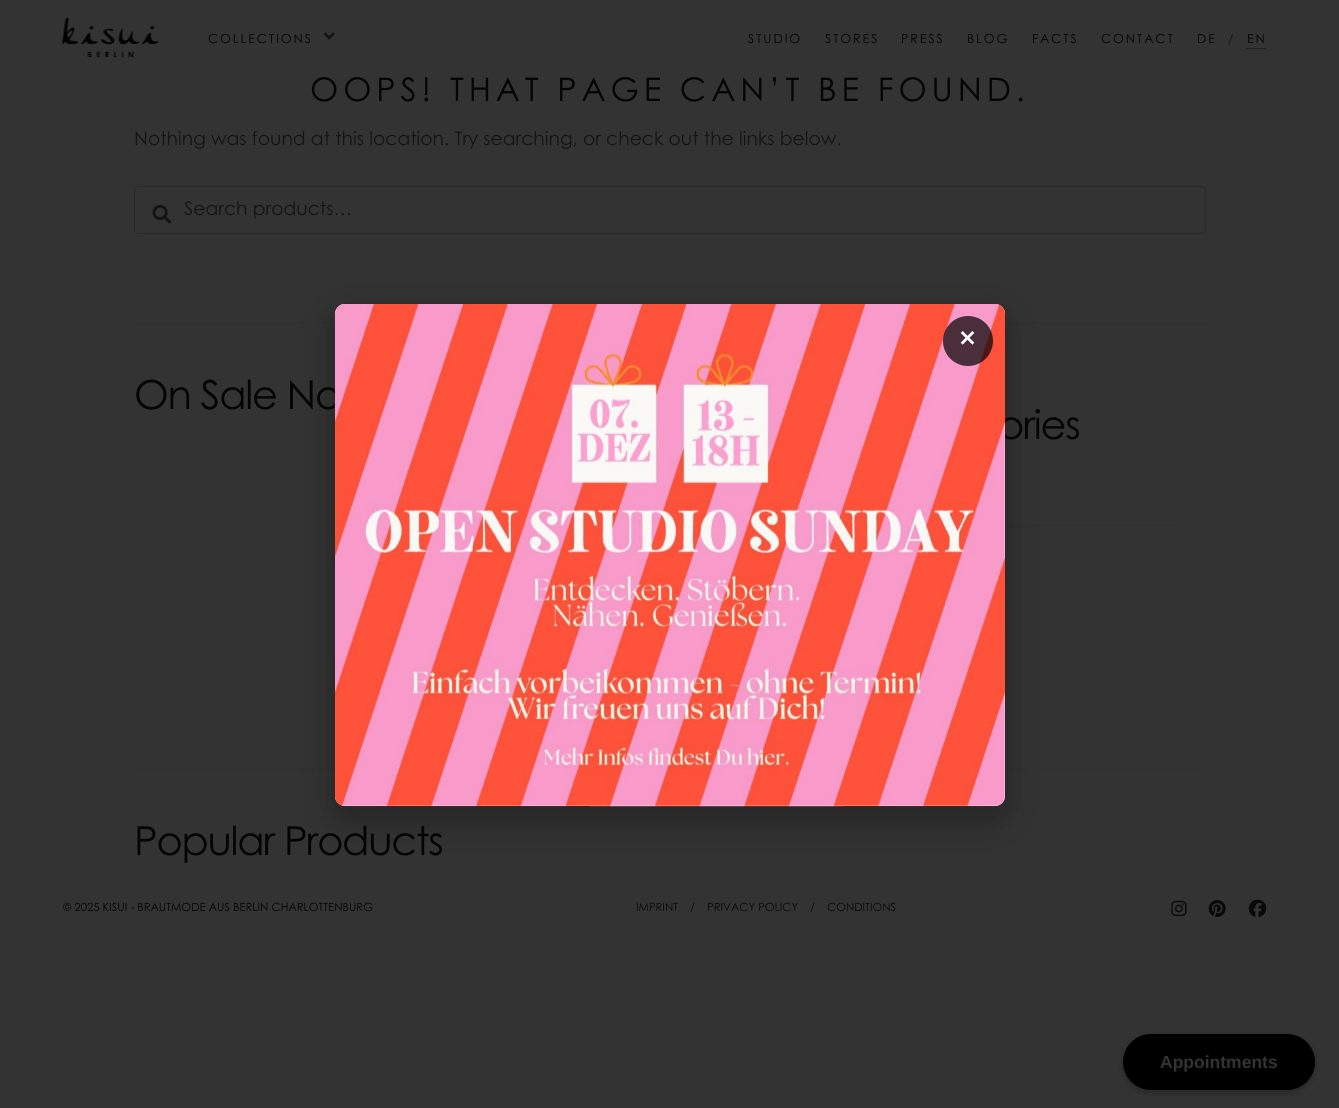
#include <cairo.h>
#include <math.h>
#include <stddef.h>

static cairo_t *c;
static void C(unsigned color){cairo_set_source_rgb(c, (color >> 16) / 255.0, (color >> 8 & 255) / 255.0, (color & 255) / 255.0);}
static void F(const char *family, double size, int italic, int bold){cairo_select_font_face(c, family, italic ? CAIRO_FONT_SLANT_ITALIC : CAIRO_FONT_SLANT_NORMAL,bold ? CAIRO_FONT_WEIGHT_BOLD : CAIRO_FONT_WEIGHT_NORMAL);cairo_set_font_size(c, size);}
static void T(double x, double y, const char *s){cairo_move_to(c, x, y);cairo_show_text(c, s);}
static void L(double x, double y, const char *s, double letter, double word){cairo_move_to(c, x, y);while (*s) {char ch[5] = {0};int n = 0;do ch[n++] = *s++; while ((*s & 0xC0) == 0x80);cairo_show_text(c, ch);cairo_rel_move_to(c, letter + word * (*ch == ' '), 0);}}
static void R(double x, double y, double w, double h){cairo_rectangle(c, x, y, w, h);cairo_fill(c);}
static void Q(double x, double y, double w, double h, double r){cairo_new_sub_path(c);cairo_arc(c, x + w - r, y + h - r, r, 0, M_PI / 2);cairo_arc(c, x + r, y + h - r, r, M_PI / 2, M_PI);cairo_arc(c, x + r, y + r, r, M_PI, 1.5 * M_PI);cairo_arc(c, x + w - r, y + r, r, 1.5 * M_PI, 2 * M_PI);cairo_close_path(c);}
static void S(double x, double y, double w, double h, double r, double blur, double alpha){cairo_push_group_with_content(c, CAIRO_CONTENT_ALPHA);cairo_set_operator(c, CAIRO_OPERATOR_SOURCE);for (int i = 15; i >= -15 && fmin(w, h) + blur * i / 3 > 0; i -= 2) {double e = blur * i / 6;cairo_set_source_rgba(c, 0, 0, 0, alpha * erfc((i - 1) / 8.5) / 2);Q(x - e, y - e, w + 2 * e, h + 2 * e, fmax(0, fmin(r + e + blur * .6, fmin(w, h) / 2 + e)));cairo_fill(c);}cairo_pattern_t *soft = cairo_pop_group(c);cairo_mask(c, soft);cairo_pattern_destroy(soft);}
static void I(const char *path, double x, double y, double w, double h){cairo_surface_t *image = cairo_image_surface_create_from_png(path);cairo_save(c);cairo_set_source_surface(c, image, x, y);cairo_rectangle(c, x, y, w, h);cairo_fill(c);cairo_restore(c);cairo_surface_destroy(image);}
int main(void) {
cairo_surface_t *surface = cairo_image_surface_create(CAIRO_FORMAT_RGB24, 1339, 1108);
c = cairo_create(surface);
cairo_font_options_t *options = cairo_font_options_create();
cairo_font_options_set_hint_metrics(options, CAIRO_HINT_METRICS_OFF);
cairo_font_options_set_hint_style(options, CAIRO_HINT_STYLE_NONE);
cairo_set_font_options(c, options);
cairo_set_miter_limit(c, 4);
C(0x333333);
cairo_paint(c);
I("1.png",62,18,97,40);
F("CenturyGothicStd",12.5,0,0);
C(0x040404);
L(208,43,"COLLECTIONS",1.9,0);
I("2.png",323,32,12,8);
L(748,43,"STUDIO",1.9,0);
L(825,43,"STORES",1.9,0);
L(901,43,"PRESS",1.9,0);
L(967,43,"BLOG",1.9,0);
L(1032,43,"FACTS",1.9,0);
L(1101,43,"CONTACT",1.9,0);
L(1197,43,"DE",1.9,0);
C(0x141414);
L(1228,43,"/",1.9,0);
C(0x040404);
L(1247,43,"EN",1.9,0);
C(0x1f1f1f);
R(1246,48,20,1);
F("CenturyGothicStd",32.5,0,0);
C(0x040404);
L(310,101,"OOPS! THAT PAGE CAN’T BE FOUND.",4.9,0);
F("CenturyGothicStd",18.75,0,0);
C(0x141414);
T(134,145,"Nothing was found at this location. Try searching, or check out the links below.");
Q(134.5,186.5,1071,47,4.5);
C(0x2a2a2a);
cairo_set_line_width(c,1);
cairo_stroke(c);
I("3.png",152,204,20,20);
C(0x141414);
T(184,215,"Search products…");
C(0x303030);
R(134,323,1072,1);
R(134,769,1072,1);
F("CenturyGothicStd",40,0,0);
C(0x040404);
L(134,409,"On Sale No",-1.25,0);
L(998,439,"ories",-1.25,0);
C(0x2f2f2f);
R(1005,525,171,1);
C(0x040404);
L(134,855,"Popular Products",-1.25,0);
C(0x000000);
S(335,316,670,503,10,19,.3);
C(0xffffff);
Q(335,304,670,502,10);
cairo_fill(c);
I("4.png",335,304,670,503);
cairo_set_source_rgba(c,0,0,0,0.7);
cairo_arc(c,968,341,25,0,2 * M_PI);
cairo_fill(c);
F("CenturyGothicStd",30,0,1);
C(0xffffff);
L(958,349,"×",1,0);
F("CenturyGothicStd",11.25,0,0);
C(0x040404);
T(63,911,"© 2025 KISUI - BRAUTMODE AUS BERLIN CHARLOTTENBURG");
C(0x09090a);
T(636,911,"IMPRINT");
T(690,911,"/");
T(707,911,"PRIVACY POLICY");
T(810,911,"/");
T(827,911,"CONDITIONS");
I("5.png",1171,900,16,17);
I("6.png",1208,900,18,17);
I("7.png",1248,899,19,19);
C(0x000000);
S(1123,1036,192,57,28.5,3,.25);
C(0x000000);
Q(1123,1034,192,56,28);
cairo_fill(c);
F("Liberation Sans",17.5,0,1);
C(0x333333);
T(1160,1068,"Appointments");
cairo_surface_write_to_png(surface, "o.png");
cairo_font_options_destroy(options);
cairo_destroy(c);
cairo_surface_destroy(surface);
return 0;
}
